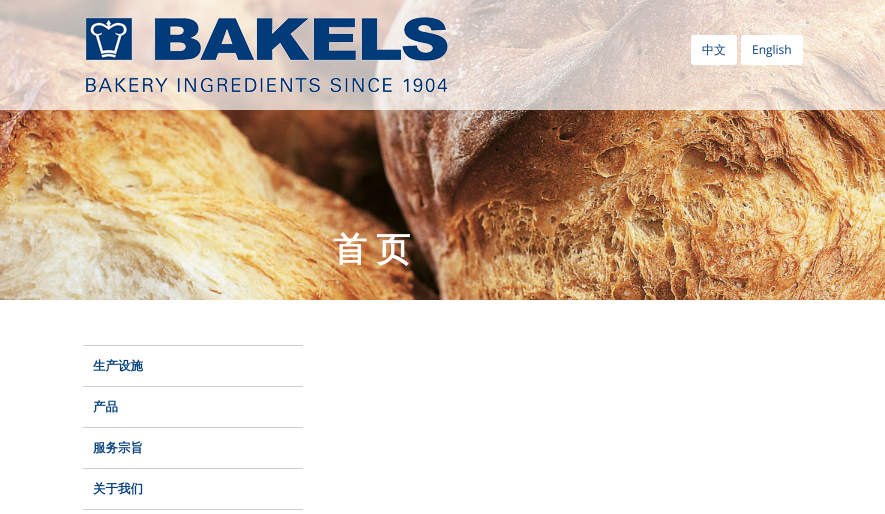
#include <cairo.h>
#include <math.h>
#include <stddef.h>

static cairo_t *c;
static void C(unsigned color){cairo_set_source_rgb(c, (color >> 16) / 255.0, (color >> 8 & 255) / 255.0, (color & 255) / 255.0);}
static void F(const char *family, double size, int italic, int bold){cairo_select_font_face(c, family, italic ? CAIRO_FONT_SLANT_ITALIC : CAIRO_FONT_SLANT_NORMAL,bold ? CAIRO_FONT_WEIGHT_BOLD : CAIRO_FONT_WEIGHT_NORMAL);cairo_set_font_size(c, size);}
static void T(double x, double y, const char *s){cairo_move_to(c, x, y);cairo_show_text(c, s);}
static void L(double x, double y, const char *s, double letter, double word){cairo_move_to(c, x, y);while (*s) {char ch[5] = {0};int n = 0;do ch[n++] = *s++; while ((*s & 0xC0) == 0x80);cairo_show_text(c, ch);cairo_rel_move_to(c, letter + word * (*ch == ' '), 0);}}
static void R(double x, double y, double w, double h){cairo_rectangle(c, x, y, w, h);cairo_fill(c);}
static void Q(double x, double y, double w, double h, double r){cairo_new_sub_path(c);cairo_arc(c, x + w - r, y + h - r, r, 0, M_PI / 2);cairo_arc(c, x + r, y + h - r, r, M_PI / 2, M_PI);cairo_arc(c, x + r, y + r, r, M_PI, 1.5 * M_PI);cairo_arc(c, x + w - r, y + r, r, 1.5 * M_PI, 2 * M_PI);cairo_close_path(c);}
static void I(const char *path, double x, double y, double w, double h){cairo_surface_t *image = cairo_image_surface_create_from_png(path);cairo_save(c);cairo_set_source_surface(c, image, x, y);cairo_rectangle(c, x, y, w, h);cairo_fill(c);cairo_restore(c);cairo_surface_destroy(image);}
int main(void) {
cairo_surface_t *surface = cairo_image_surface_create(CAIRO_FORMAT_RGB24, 885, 514);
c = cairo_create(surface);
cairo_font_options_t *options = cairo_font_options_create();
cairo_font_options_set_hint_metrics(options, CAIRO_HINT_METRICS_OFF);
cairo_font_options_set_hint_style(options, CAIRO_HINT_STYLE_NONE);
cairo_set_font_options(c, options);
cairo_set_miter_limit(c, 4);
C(0xffffff);
cairo_paint(c);
I("1.png",0,0,885,300);
cairo_set_source_rgba(c,1,1,1,0.7);
R(0,0,885,110);
I("2.png",85,17,363,76);
C(0xffffff);
Q(691,35,46,30,3);
cairo_fill(c);
F("WenQuanYi Zen Hei Medium",12,0,0);
C(0x003e7e);
T(702,54,"中文");
C(0xffffff);
Q(741,35,62,30,3);
cairo_fill(c);
F("Open Sans",12,0,0);
C(0x003e7e);
T(752,54,"English");
F("WenQuanYi Zen Hei",34,0,1);
C(0xffffff);
L(333,261,"首 页",0,-1);
C(0xcccccc);
R(83,345,220,1);
R(83,386,220,1);
F("WenQuanYi Zen Hei",12.5,0,1);
C(0x003e7e);
T(93,370,"生产设施");
C(0xcccccc);
R(83,427,220,1);
C(0x003e7e);
T(93,411,"产品");
C(0xcccccc);
R(83,468,220,1);
C(0x003e7e);
T(93,452,"服务宗旨");
C(0xcccccc);
R(83,509,220,1);
C(0x003e7e);
T(93,493,"关于我们");
cairo_surface_write_to_png(surface, "o.png");
cairo_font_options_destroy(options);
cairo_destroy(c);
cairo_surface_destroy(surface);
return 0;
}
